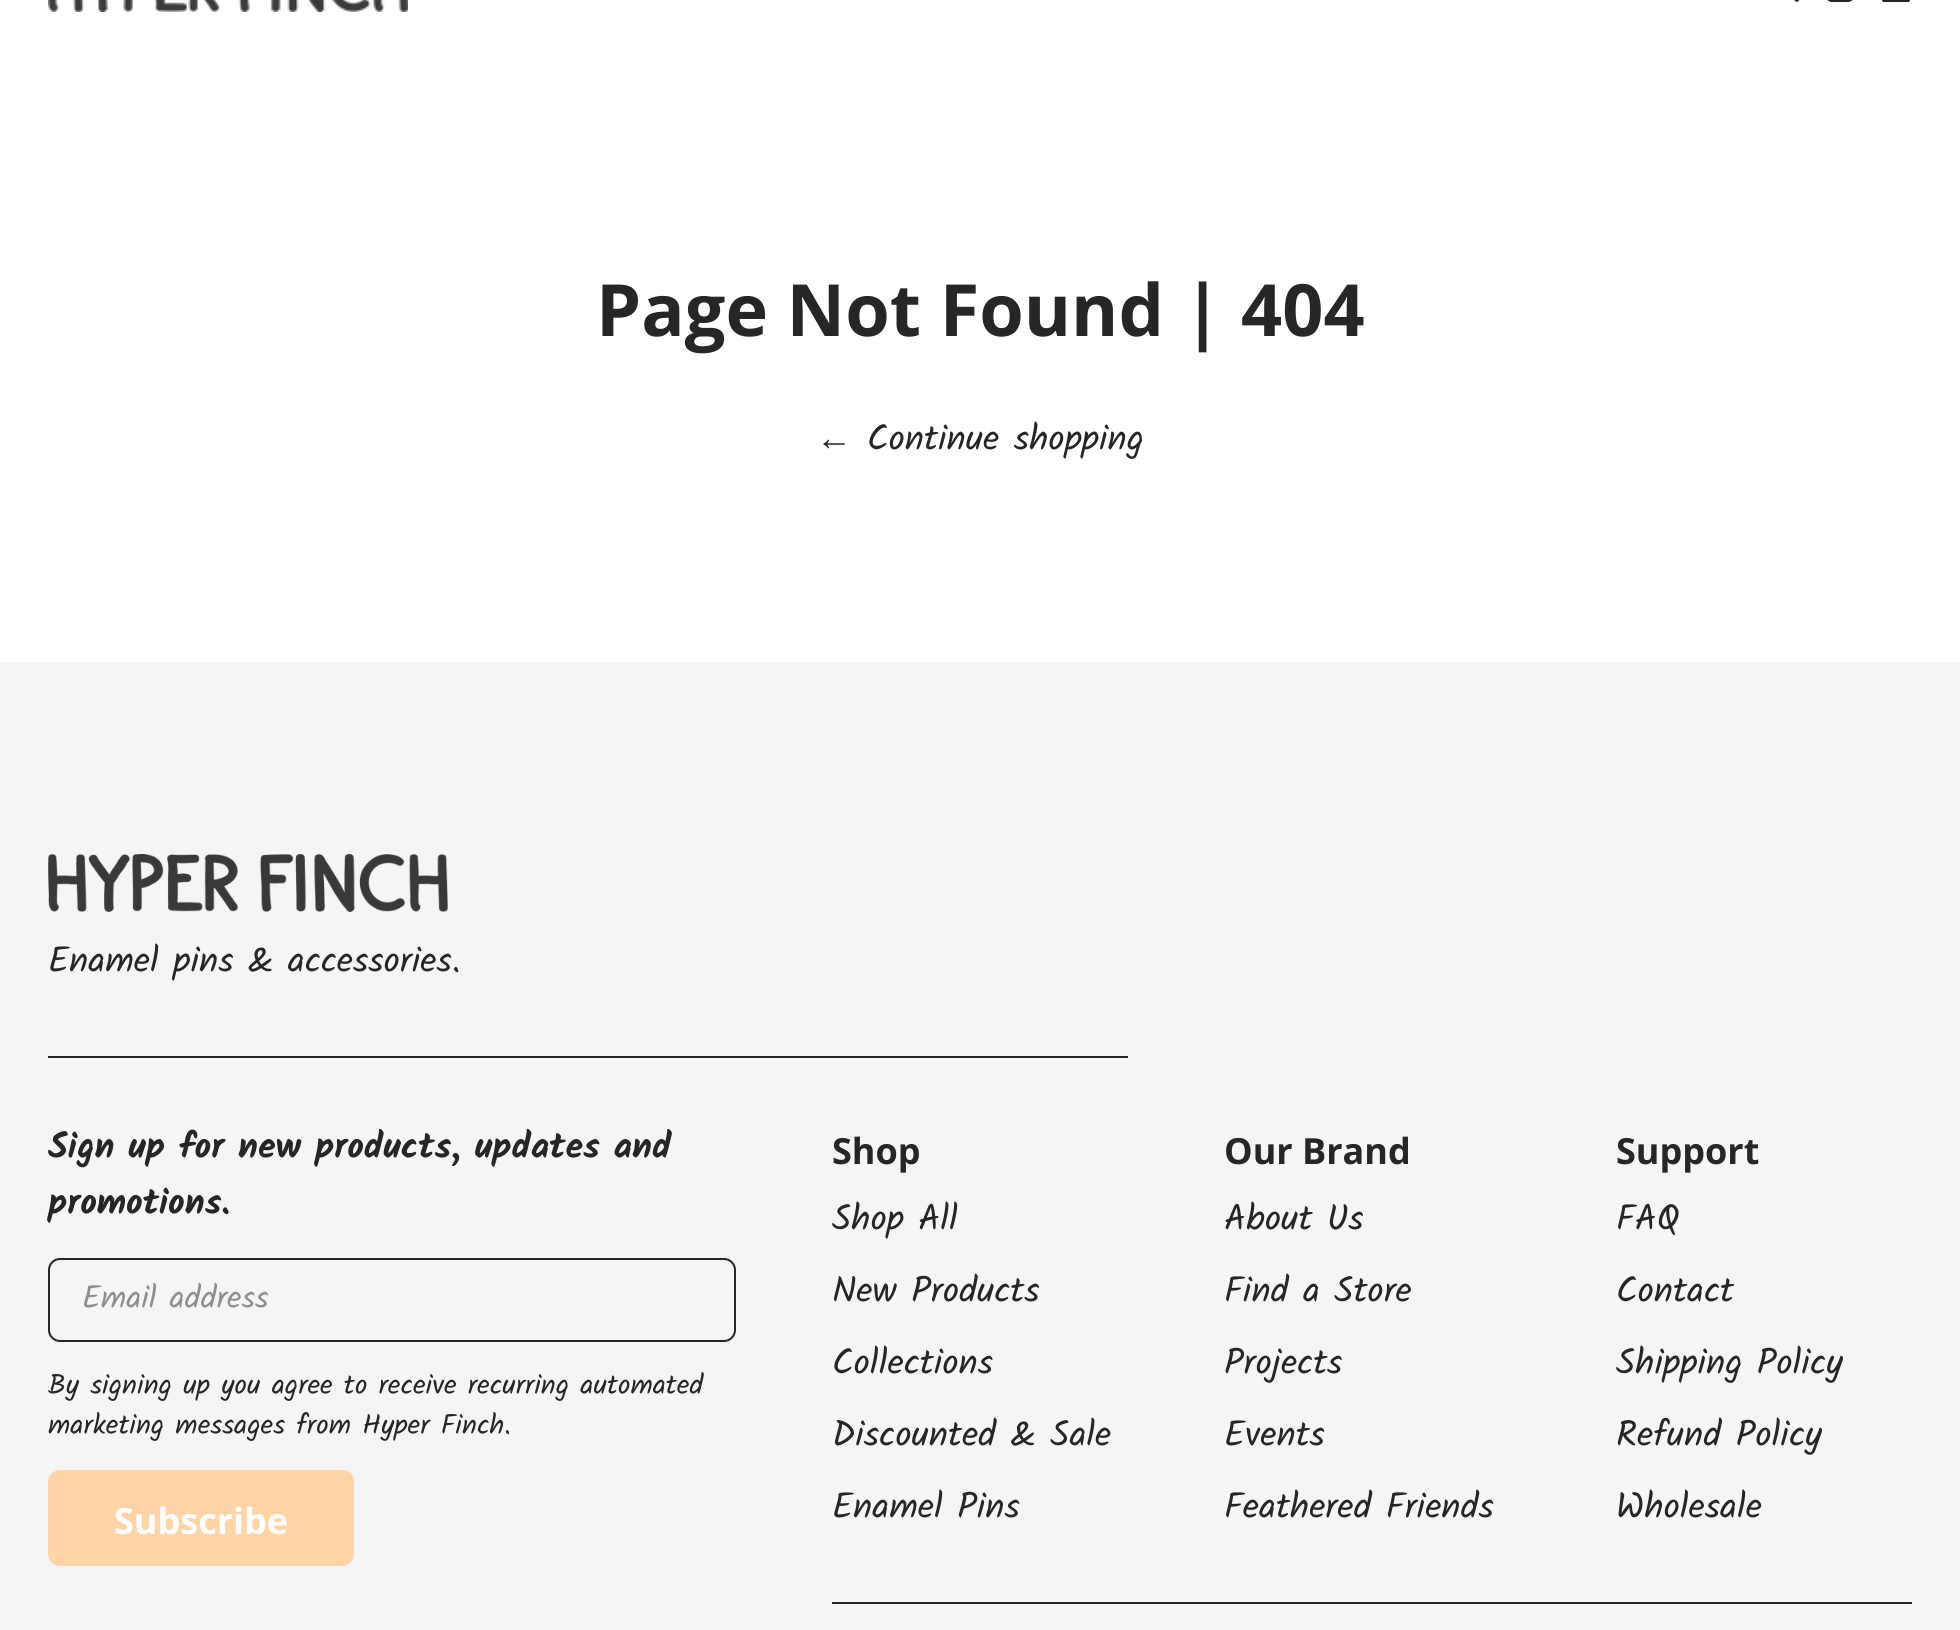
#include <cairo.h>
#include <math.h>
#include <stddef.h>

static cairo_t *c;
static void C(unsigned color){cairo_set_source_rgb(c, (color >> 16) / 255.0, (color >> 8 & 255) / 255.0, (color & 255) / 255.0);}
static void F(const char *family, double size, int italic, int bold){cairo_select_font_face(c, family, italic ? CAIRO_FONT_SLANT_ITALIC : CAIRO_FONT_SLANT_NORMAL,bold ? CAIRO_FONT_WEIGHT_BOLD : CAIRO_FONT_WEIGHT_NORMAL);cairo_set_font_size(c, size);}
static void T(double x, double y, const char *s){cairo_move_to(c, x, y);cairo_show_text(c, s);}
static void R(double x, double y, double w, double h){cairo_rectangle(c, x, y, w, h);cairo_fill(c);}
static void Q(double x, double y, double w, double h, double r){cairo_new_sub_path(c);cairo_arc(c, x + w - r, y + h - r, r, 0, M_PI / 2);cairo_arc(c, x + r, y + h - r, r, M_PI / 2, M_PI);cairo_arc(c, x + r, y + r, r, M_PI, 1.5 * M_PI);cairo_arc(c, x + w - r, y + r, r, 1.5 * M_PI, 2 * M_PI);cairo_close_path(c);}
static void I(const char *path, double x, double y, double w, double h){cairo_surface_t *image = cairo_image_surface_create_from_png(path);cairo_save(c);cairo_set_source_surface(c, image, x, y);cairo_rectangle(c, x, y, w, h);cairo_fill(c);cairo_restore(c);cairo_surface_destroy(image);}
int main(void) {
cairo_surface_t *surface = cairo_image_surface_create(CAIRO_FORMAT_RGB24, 1960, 1630);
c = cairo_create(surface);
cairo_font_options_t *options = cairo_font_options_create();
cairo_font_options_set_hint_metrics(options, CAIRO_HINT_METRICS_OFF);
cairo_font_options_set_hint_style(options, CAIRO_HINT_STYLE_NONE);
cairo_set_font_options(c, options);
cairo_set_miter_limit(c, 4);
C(0xffffff);
cairo_paint(c);
I("1.png",48,0,360,12);
I("2.png",1794,0,6,2);
I("3.png",1827,0,26,2);
I("4.png",1882,0,28,2);
F("Open Sans",72,0,1);
C(0x262626);
T(596,336,"Page Not Found | 404");
F("Liberation Serif",36,0,0);
T(816,450,"←");
F("Kalam",36,0,0);
T(867,450,"Continue shopping");
C(0xf5f5f5);
R(0,662,1960,968);
I("5.png",48,854,400,58);
C(0x262626);
T(48,972,"Enamel pins & accessories.");
R(48,1056,1080,2);
F("Kalam",36,0,1);
T(48,1158,"Sign up for new products, updates and");
T(48,1214,"promotions.");
Q(49,1259,686,82,11);
cairo_stroke(c);
F("Kalam",32,0,0);
C(0x8e8e8e);
T(82,1308,"Email address");
F("Kalam",28,0,0);
C(0x262626);
T(48,1394,"By signing up you agree to receive recurring automated");
T(48,1434,"marketing messages from Hyper Finch.");
C(0xffd4a6);
Q(49,1471,304,94,11);
cairo_fill_preserve(c);
cairo_stroke(c);
F("Open Sans",36,0,1);
C(0xffffff);
T(114,1534,"Subscribe");
C(0x262626);
T(832,1164,"Shop");
F("Kalam",36,0,0);
T(832,1230,"Shop All");
T(832,1302,"New Products");
T(832,1374,"Collections");
T(832,1446,"Discounted & Sale");
T(832,1518,"Enamel Pins");
F("Open Sans",36,0,1);
T(1224,1164,"Our Brand");
F("Kalam",36,0,0);
T(1224,1230,"About Us");
T(1224,1302,"Find a Store");
T(1224,1374,"Projects");
T(1224,1446,"Events");
T(1224,1518,"Feathered Friends");
F("Open Sans",36,0,1);
T(1616,1164,"Support");
F("Kalam",36,0,0);
T(1616,1230,"FAQ");
T(1616,1302,"Contact");
T(1616,1374,"Shipping Policy");
T(1616,1446,"Refund Policy");
T(1616,1518,"Wholesale");
R(832,1602,1080,2);
cairo_surface_write_to_png(surface, "o.png");
cairo_font_options_destroy(options);
cairo_destroy(c);
cairo_surface_destroy(surface);
return 0;
}
